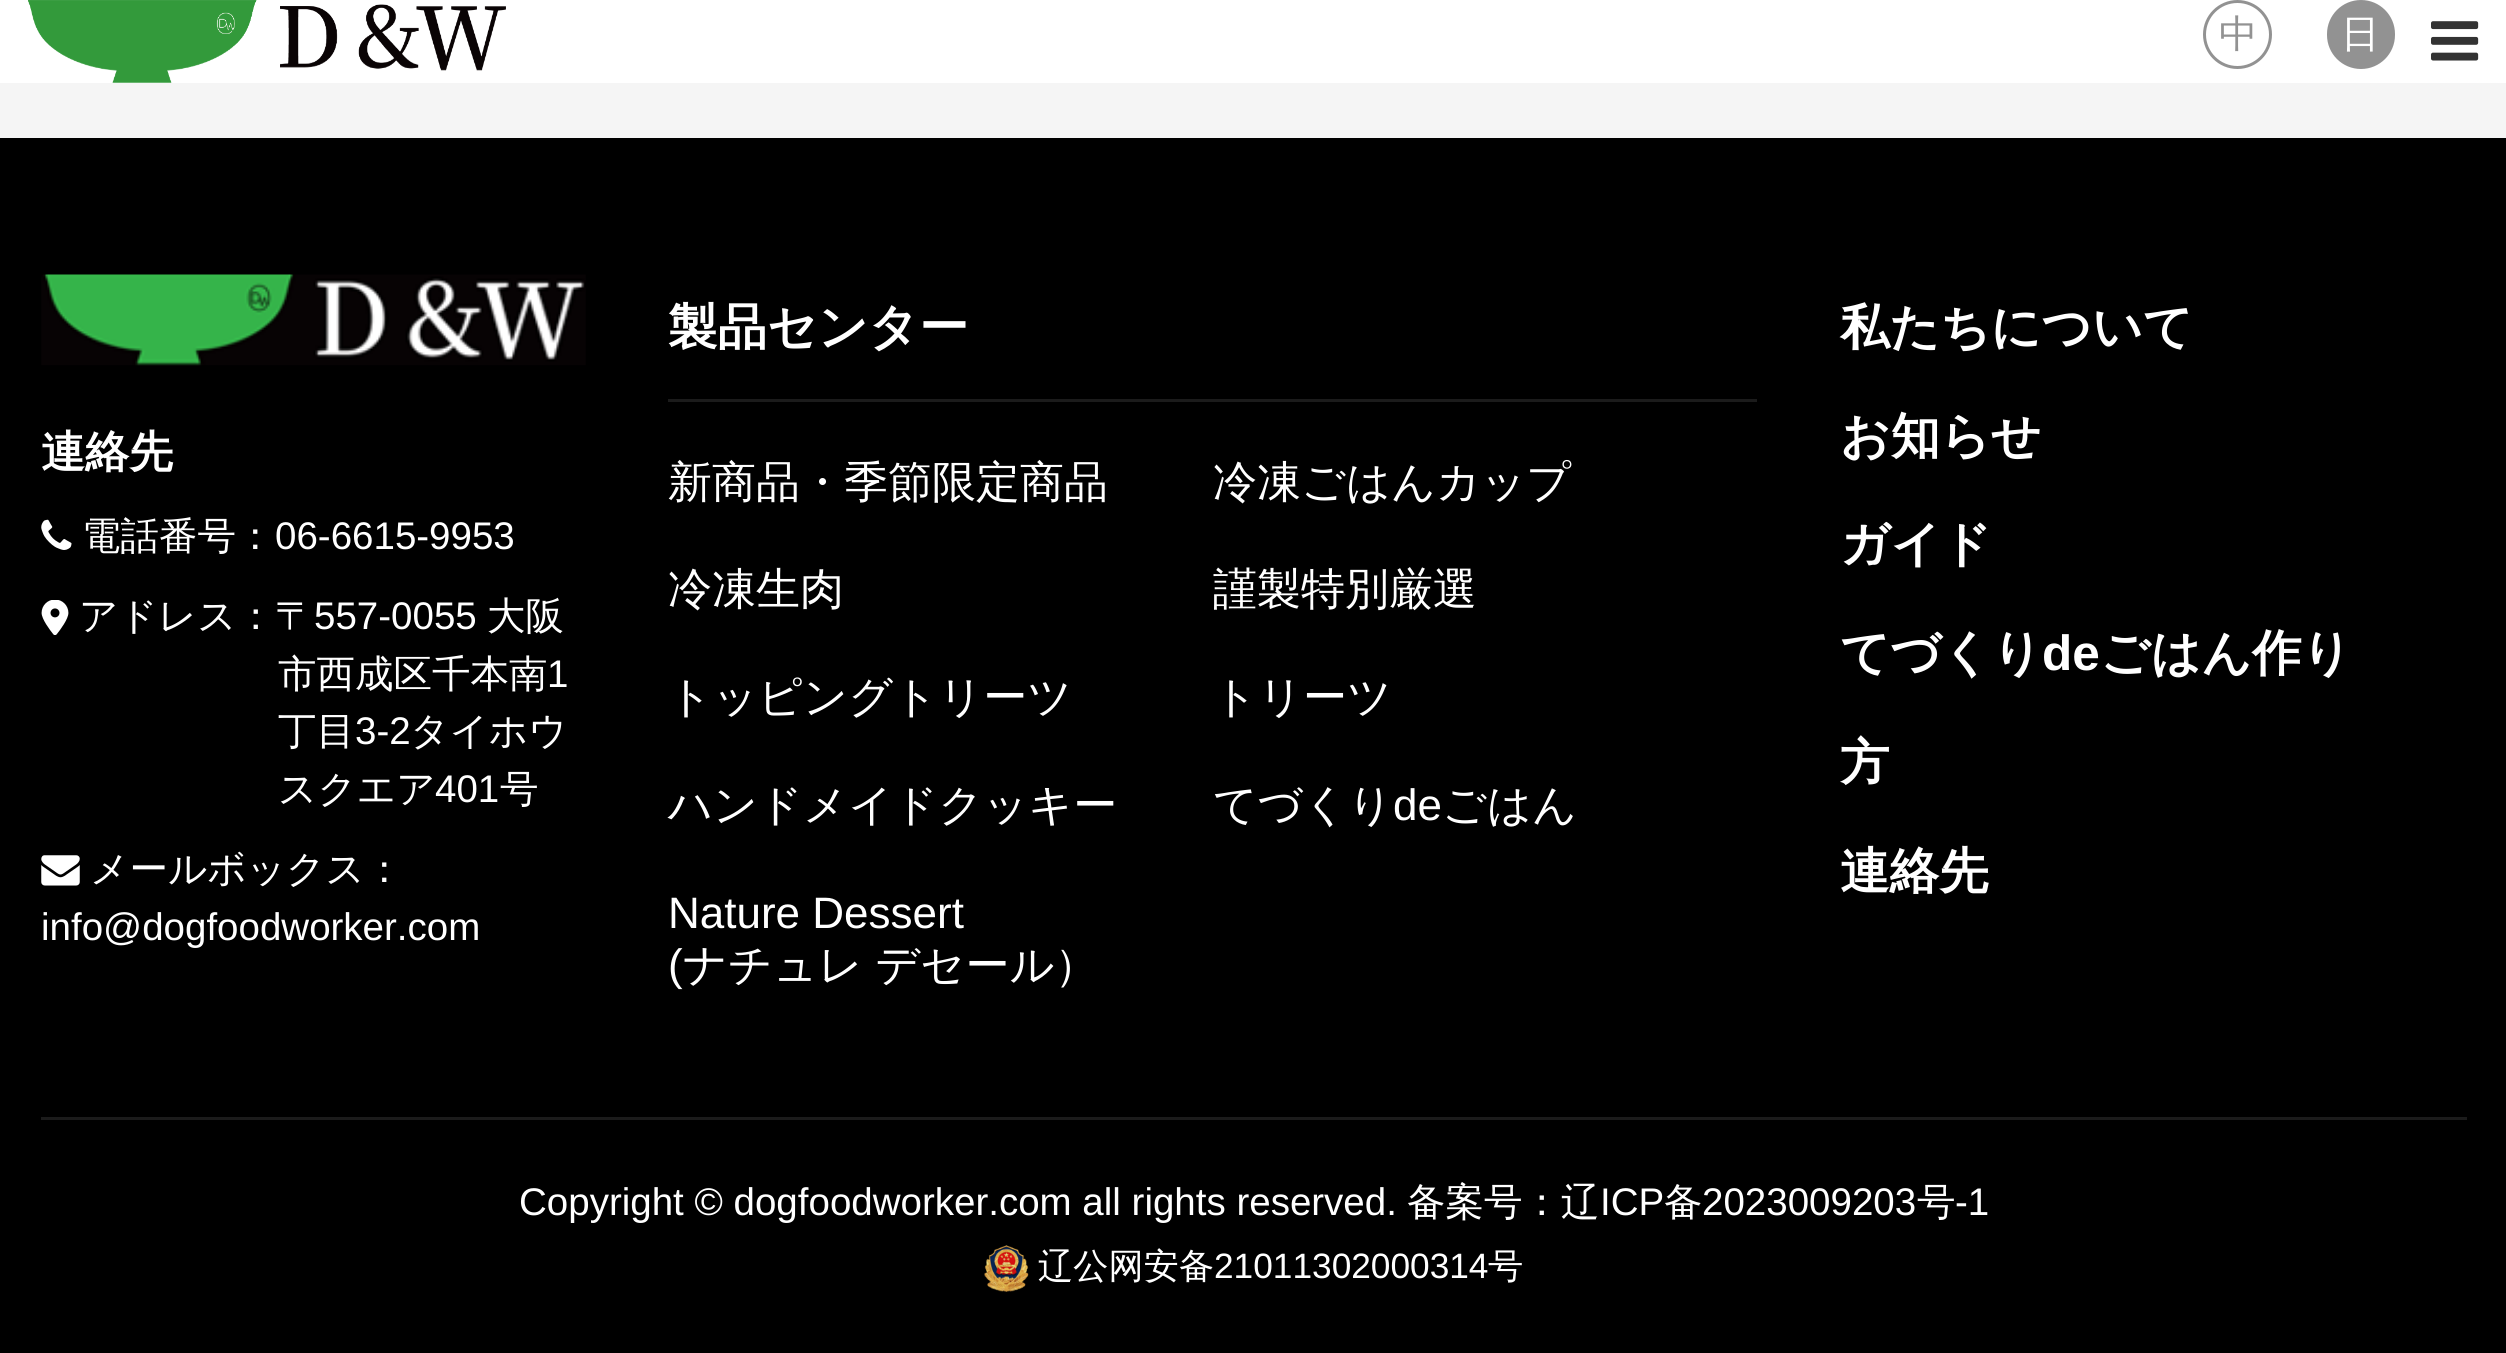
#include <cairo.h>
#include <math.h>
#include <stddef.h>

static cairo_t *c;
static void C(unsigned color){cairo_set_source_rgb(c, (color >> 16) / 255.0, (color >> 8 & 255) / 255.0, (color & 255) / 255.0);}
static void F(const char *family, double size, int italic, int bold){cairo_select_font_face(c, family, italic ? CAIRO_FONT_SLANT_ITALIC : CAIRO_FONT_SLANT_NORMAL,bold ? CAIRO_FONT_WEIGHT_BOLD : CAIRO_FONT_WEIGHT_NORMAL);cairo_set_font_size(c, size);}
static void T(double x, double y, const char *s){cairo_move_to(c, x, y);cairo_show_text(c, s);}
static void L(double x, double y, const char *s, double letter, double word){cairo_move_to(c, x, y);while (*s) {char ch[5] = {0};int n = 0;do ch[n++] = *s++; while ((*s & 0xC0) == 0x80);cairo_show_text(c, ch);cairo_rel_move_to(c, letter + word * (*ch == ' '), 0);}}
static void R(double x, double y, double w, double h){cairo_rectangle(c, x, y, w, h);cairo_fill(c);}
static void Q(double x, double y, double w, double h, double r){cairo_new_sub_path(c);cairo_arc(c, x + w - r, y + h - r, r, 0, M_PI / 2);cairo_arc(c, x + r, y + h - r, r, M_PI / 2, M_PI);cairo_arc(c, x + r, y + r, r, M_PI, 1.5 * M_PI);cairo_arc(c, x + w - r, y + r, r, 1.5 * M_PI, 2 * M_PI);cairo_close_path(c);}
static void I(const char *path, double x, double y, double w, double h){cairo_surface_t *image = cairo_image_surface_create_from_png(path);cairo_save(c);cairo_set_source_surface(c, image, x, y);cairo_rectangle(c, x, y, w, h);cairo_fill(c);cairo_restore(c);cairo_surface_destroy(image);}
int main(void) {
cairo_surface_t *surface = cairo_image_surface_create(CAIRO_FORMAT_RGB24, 2506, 1353);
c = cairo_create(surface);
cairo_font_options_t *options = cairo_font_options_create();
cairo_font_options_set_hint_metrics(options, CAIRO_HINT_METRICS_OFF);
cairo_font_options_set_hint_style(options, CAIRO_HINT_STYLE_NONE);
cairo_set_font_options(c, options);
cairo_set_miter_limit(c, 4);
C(0xf5f5f5);
cairo_paint(c);
C(0xffffff);
R(0,0,2506,83);
I("1.png",28,0,478,83);
cairo_arc(c,2237.5,34.5,33,0,2 * M_PI);
C(0x929292);
cairo_set_line_width(c,3);
cairo_stroke(c);
F("WenQuanYi Zen Hei Medium",38.5,0,0);
T(2219,47,"中");
Q(2328.5,1.5,65,66,32.5);
cairo_fill_preserve(c);
cairo_stroke(c);
C(0xffffff);
T(2341,47,"日");
I("2.png",2431,21,48,40);
C(0x000000);
R(0,138,2506,1215);
I("3.png",41,274,545,92);
F("WenQuanYi Zen Hei",44,0,1);
C(0xffffff);
T(41,467,"連絡先");
I("4.png",41,519,31,31);
F("WenQuanYi Zen Hei Medium",38.5,0,0);
T(82,549,"電話番号：");
F("Liberation Sans",38.5,0,0);
T(275,549,"06-6615-9953");
I("5.png",41,600,28,35);
F("WenQuanYi Zen Hei Medium",38.5,0,0);
T(79,629,"アドレス：〒");
F("Liberation Sans",38.5,0,0);
T(314,629,"557-0055");
F("WenQuanYi Zen Hei Medium",38.5,0,0);
T(487,629,"大阪");
T(278,687,"市西成区千本南");
F("Liberation Sans",38.5,0,0);
T(547,687,"1");
F("WenQuanYi Zen Hei Medium",38.5,0,0);
T(278,744,"丁目");
F("Liberation Sans",38.5,0,0);
T(355,744,"3-2");
F("WenQuanYi Zen Hei Medium",38.5,0,0);
T(410,744,"タイホウ");
T(278,802,"スクエア");
F("Liberation Sans",38.5,0,0);
T(435,802,"401");
F("WenQuanYi Zen Hei Medium",38.5,0,0);
T(500,802,"号");
I("6.png",41,855,39,31);
T(90,882,"メールボックス：");
F("Liberation Sans",38.5,0,0);
T(41,940,"info@dogfoodworker.com");
F("WenQuanYi Zen Hei",49.5,0,1);
T(668,344,"製品センター");
C(0x1b1b1b);
R(668,399,1089,3);
F("WenQuanYi Zen Hei Medium",44,0,0);
C(0xffffff);
T(668,497,"新商品・季節限定商品");
T(1213,497,"冷凍ごはんカップ");
T(668,604,"冷凍生肉");
T(1213,604,"謹製特別厳選");
T(668,712,"トッピングトリーツ");
T(1213,712,"トリーツ");
T(668,820,"ハンドメイドクッキー");
T(1213,820,"てづくり");
F("Liberation Sans",44,0,0);
T(1393,820,"de");
F("WenQuanYi Zen Hei Medium",44,0,0);
T(1442,820,"ごはん");
F("Liberation Sans",44,0,0);
T(668,928,"Nature Dessert");
T(668,980,"(");
F("WenQuanYi Zen Hei Medium",44,0,0);
L(683,980,"ナチュレ デセール）",0,-1);
F("WenQuanYi Zen Hei",49.5,0,1);
T(1840,344,"私たちについて");
T(1840,453,"お知らせ");
T(1840,561,"ガイド");
T(1840,670,"てづくり");
F("Liberation Sans",49.5,0,1);
T(2042,670,"de");
F("WenQuanYi Zen Hei",49.5,0,1);
T(2100,670,"ごはん作り");
T(1840,779,"方");
T(1840,888,"連絡先");
C(0x1b1b1b);
R(41,1117,2426,3);
F("Liberation Sans",38.5,0,0);
C(0xffffff);
T(519,1215,"Copyright © dogfoodworker.com all rights reserved.");
F("WenQuanYi Zen Hei Medium",38.5,0,0);
T(1407,1215,"备案号：辽");
F("Liberation Sans",38.5,0,0);
T(1600,1215,"ICP");
F("WenQuanYi Zen Hei Medium",38.5,0,0);
T(1664,1215,"备");
F("Liberation Sans",38.5,0,0);
T(1702,1215,"2023009203");
F("WenQuanYi Zen Hei Medium",38.5,0,0);
T(1917,1215,"号");
F("Liberation Sans",38.5,0,0);
T(1955,1215,"-1");
I("7.png",984,1245,45,47);
F("WenQuanYi Zen Hei Medium",35.25,0,0);
T(1038,1278,"辽公网安备");
F("Liberation Sans",35.25,0,0);
T(1214,1278,"21011302000314");
F("WenQuanYi Zen Hei Medium",35.25,0,0);
T(1488,1278,"号");
cairo_surface_write_to_png(surface, "o.png");
cairo_font_options_destroy(options);
cairo_destroy(c);
cairo_surface_destroy(surface);
return 0;
}
